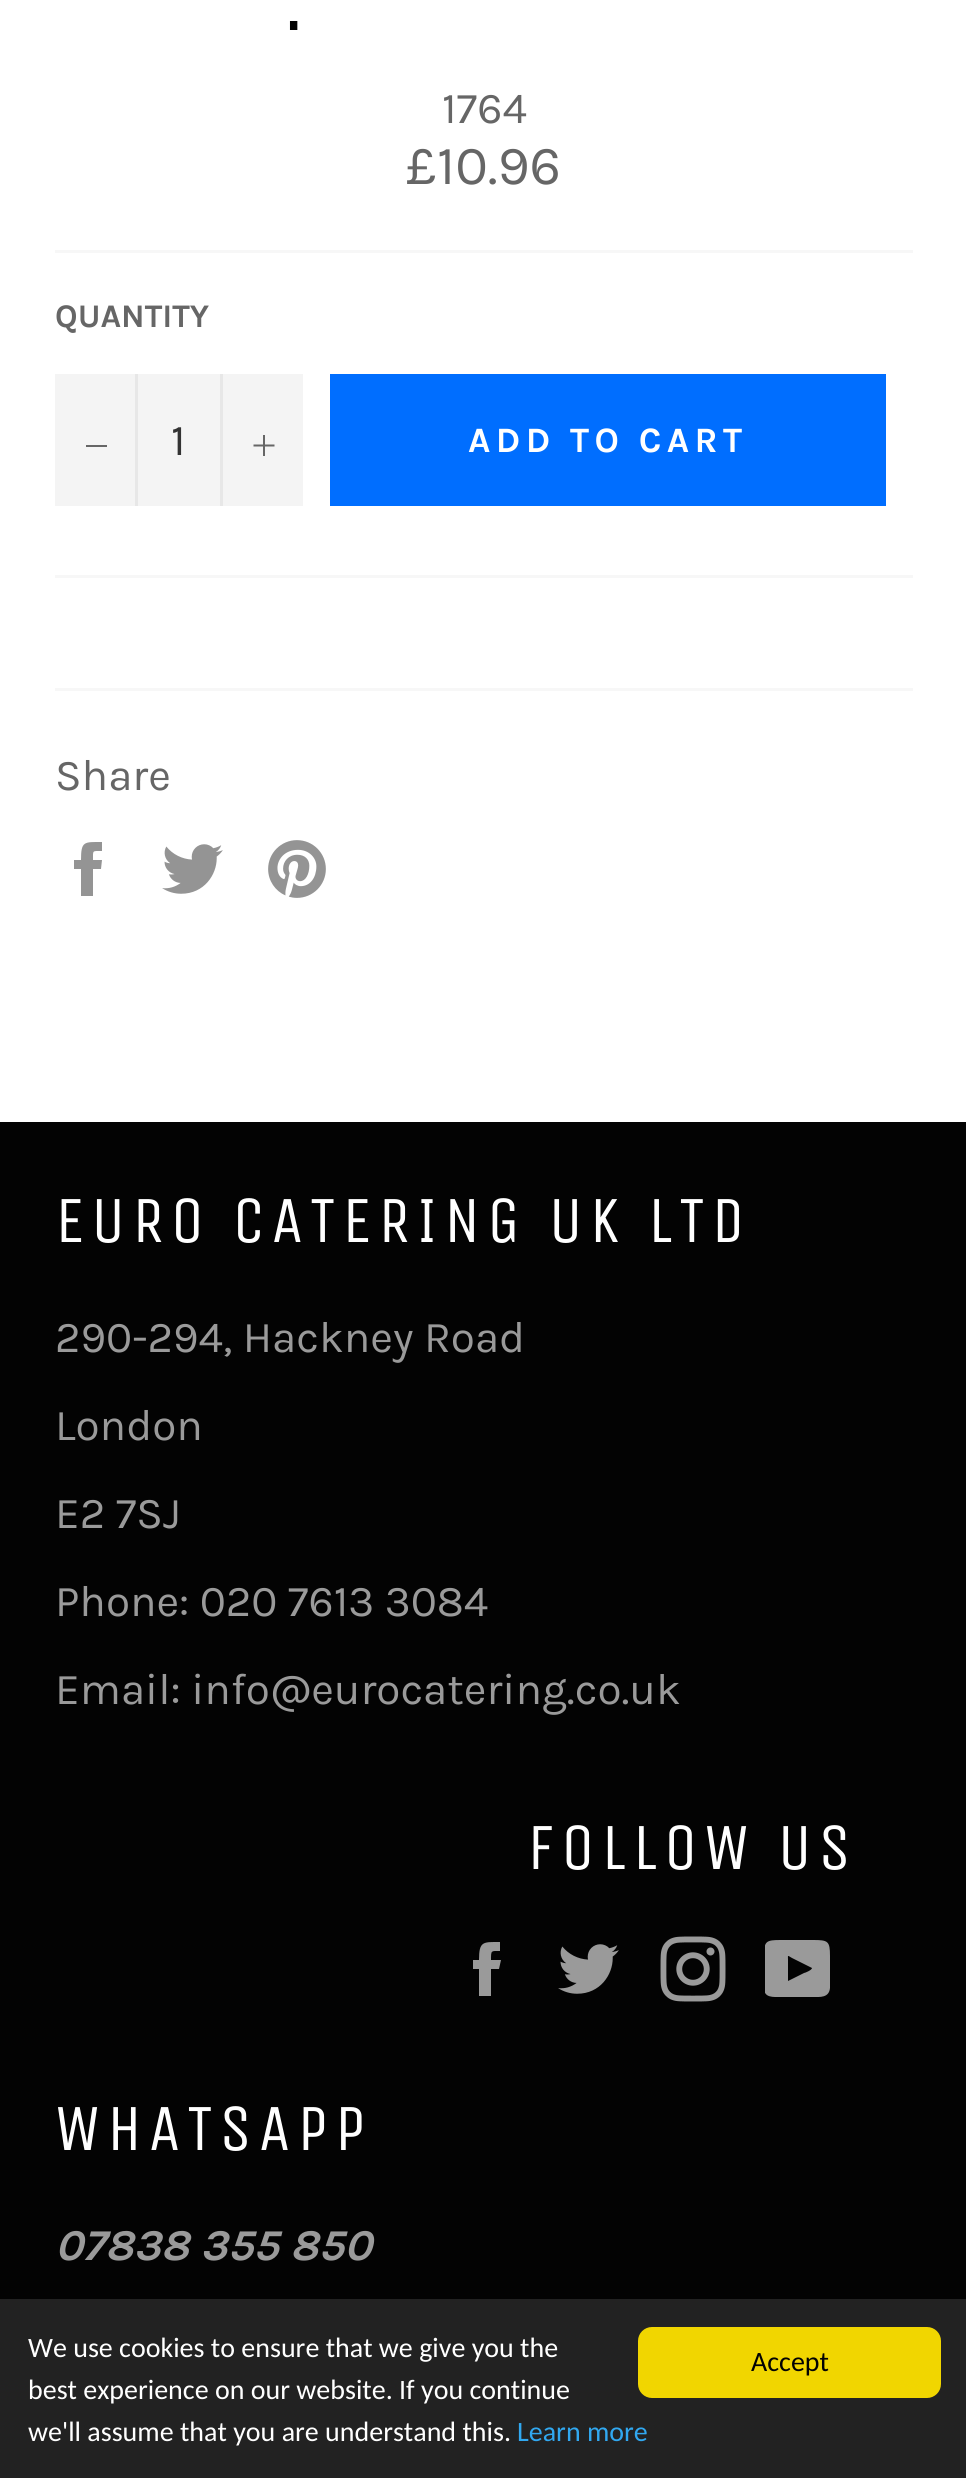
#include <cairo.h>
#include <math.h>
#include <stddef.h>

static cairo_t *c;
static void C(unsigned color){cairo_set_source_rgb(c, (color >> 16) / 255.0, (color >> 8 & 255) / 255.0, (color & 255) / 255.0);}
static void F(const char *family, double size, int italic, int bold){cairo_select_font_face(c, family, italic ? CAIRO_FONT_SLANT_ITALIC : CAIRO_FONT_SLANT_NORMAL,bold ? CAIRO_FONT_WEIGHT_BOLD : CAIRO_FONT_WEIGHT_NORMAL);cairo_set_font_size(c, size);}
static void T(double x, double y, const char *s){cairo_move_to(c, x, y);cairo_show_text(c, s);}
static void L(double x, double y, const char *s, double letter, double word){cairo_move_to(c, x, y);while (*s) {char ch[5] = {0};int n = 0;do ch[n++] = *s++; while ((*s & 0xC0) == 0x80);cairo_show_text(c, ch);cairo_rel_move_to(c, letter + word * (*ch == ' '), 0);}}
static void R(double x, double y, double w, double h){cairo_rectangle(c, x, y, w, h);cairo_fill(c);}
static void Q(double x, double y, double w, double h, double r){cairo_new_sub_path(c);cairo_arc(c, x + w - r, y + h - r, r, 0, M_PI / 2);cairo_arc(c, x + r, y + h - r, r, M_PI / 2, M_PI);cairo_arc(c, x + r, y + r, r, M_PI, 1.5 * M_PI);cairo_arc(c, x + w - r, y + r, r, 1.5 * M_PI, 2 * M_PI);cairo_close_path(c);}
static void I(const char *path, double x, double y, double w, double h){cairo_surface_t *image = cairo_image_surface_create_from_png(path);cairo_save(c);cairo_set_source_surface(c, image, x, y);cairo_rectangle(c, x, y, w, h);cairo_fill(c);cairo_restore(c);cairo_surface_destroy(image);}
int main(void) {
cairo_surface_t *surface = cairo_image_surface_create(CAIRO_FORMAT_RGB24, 966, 2478);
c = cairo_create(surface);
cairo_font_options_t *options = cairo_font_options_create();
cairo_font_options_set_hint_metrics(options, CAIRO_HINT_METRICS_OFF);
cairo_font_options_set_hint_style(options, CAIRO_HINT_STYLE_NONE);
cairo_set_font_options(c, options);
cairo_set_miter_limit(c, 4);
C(0xffffff);
cairo_paint(c);
F("Unica One",82,0,0);
C(0x030303);
L(283,30,".",8,0);
F("Karla",44,0,0);
C(0x666666);
T(442,123,"1764");
F("Karla",55,0,0);
T(406,184,"£10.96");
C(0xf7f7f7);
R(55,250,858,3);
F("Karla",33,0,1);
C(0x666666);
T(55,327,"QUANTITY");
C(0xf4f4f4);
R(55,374,248,132);
C(0xe7e7e7);
R(135,374,3,132);
C(0x666666);
R(86,445,21,2);
F("Karla",44,0,0);
C(0x333333);
T(171,455,"1");
C(0xe7e7e7);
R(220,374,3,132);
I("1.png",253,435,22,21);
C(0x006eff);
R(330,374,556,132);
F("Karla",35.75,0,1);
C(0xffffff);
L(468,452,"ADD TO CART",5.4,0);
C(0xf7f7f7);
R(55,575,858,3);
R(55,688,858,3);
F("Karla",44,0,0);
C(0x666666);
T(55,790,"Share");
C(0x949494);
cairo_new_path(c);
cairo_move_to(c,93,860);
cairo_curve_to(c,93,850,92,851,102,851);
cairo_line_to(c,102,842);
cairo_curve_to(c,84,842,81,841,81,860);
cairo_line_to(c,74,860);
cairo_line_to(c,74,869);
cairo_line_to(c,81,869);
cairo_line_to(c,81,896);
cairo_line_to(c,93,896);
cairo_line_to(c,93,869);
cairo_line_to(c,101,869);
cairo_line_to(c,102,860);
cairo_close_path(c);
cairo_fill(c);
I("2.png",162,844,61,50);
I("3.png",268,840,58,58);
C(0x030303);
R(0,1122,966,1177);
F("Unica One",66,0,0);
C(0xffffff);
L(55,1242,"EURO CATERING UK LTD",6.6,0);
F("Karla",44,0,0);
C(0x9a9a9a);
T(55,1352,"290-294, Hackney Road");
T(55,1440,"London");
T(55,1528,"E2 7SJ");
T(55,1616,"Phone: 020 7613 3084");
T(55,1704,"Email: info@eurocatering.co.uk");
F("Unica One",66,0,0);
C(0xffffff);
L(527,1869,"FOLLOW US",6.6,0);
C(0x9a9a9a);
cairo_new_path(c);
cairo_move_to(c,491,1960);
cairo_curve_to(c,491,1950,491,1951,500,1951);
cairo_line_to(c,500,1942);
cairo_curve_to(c,483,1942,479,1941,479,1960);
cairo_line_to(c,473,1960);
cairo_line_to(c,473,1969);
cairo_line_to(c,479,1969);
cairo_line_to(c,479,1996);
cairo_line_to(c,491,1996);
cairo_line_to(c,491,1969);
cairo_line_to(c,499,1969);
cairo_line_to(c,501,1960);
cairo_close_path(c);
cairo_fill(c);
I("4.png",558,1944,61,50);
I("5.png",660,1936,66,66);
cairo_save(c);
cairo_rectangle(c,765,1936,66,66);
cairo_clip(c);
cairo_new_path(c);
cairo_move_to(c,764,1988);
cairo_curve_to(c,764,1998,773,1997,781,1997);
cairo_line_to(c,813,1997);
cairo_curve_to(c,820,1997,829,1998,830,1988);
cairo_line_to(c,830,1956);
cairo_curve_to(c,830,1941,828,1940,813,1940);
cairo_line_to(c,781,1940);
cairo_curve_to(c,766,1940,764,1941,764,1956);
cairo_close_path(c);
cairo_move_to(c,788,1981);
cairo_line_to(c,788,1960);
cairo_curve_to(c,788,1955,787,1955,792,1958);
cairo_line_to(c,812,1968);
cairo_curve_to(c,812,1970,805,1973,804,1973);
cairo_close_path(c);
cairo_fill(c);
cairo_restore(c);
C(0xffffff);
L(55,2150,"WHATSAPP",6.6,0);
F("Karla",44,1,1);
C(0x9a9a9a);
T(55,2260,"07838 355 850");
C(0x222222);
R(0,2299,966,179);
F("Carlito",28,0,0);
C(0xffffff);
T(28,2357,"We use cookies to ensure that we give you the");
T(28,2399,"best experience on our website. If you continue");
T(28,2441,"we'll assume that you are understand this.");
C(0x31a8f0);
T(517,2441,"Learn more");
C(0xf1d600);
Q(638,2327,303,71,14);
cairo_fill(c);
C(0x030303);
T(751,2371,"Accept");
cairo_surface_write_to_png(surface, "o.png");
cairo_font_options_destroy(options);
cairo_destroy(c);
cairo_surface_destroy(surface);
return 0;
}
